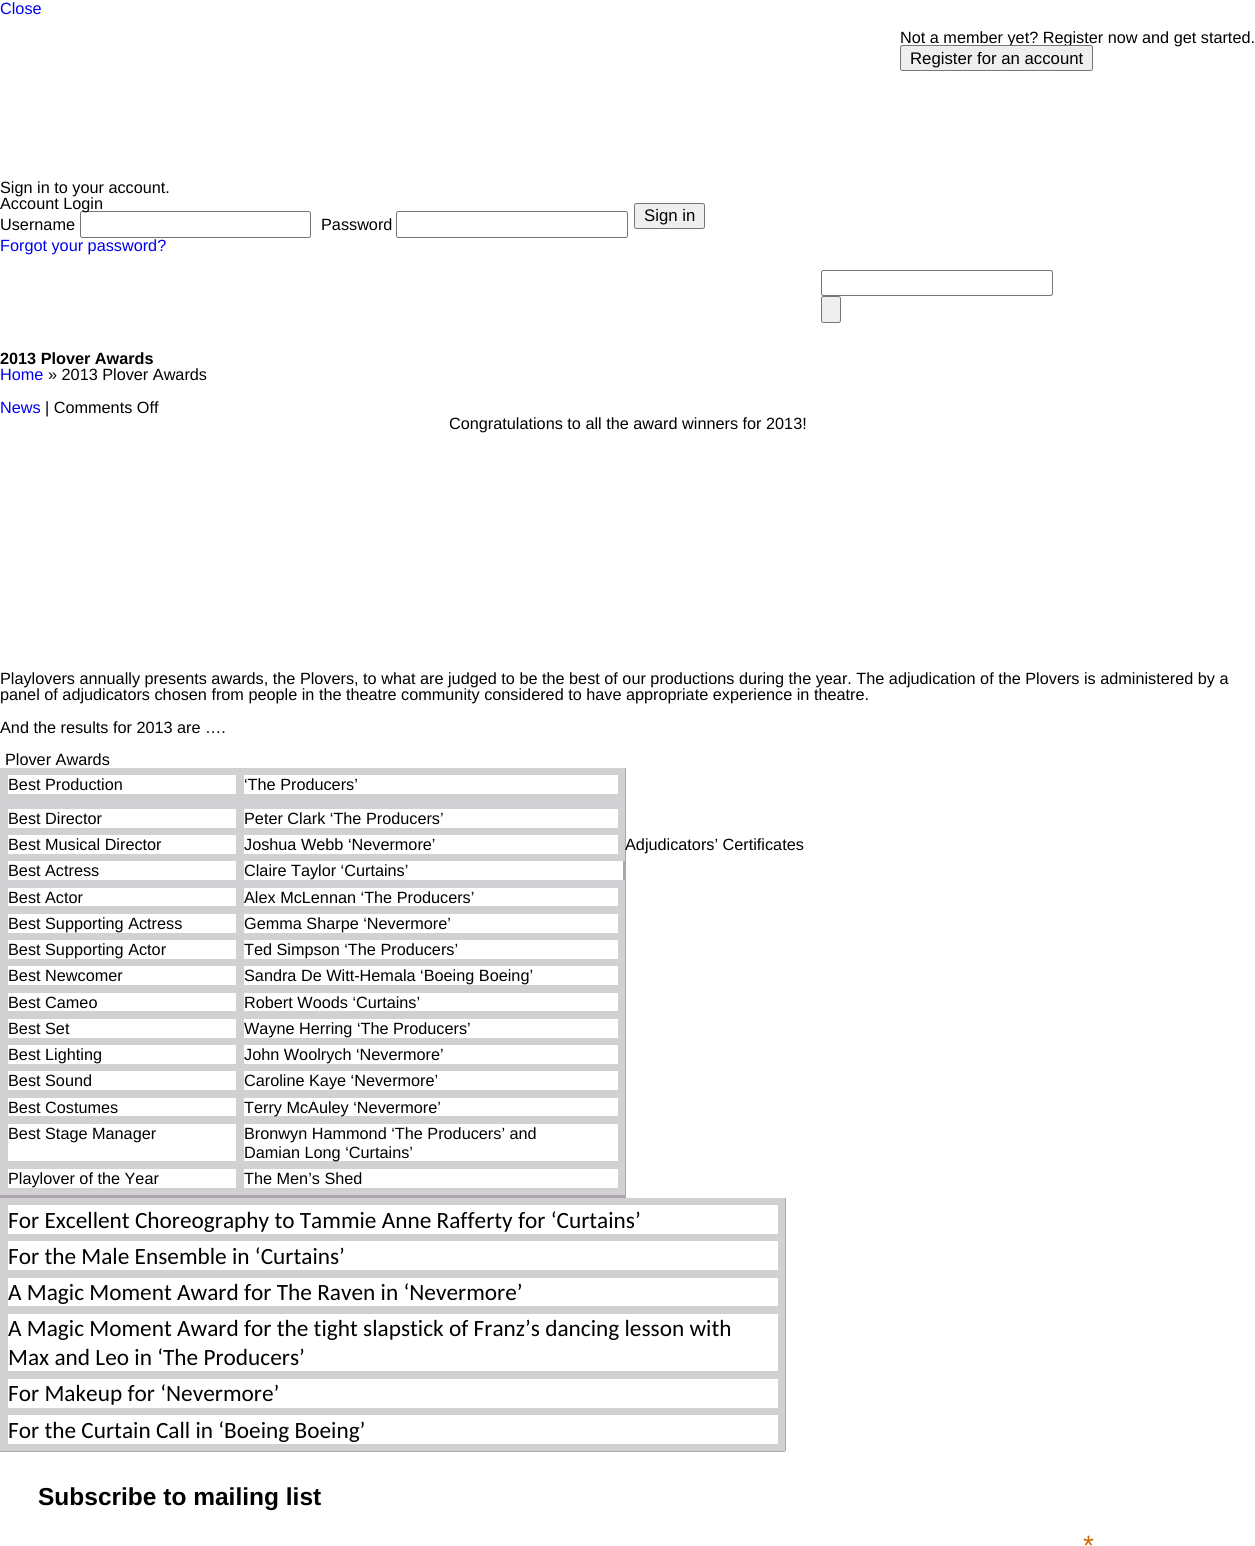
#include <cairo.h>
#include <math.h>
#include <stddef.h>

static cairo_t *c;
static void C(unsigned color){cairo_set_source_rgb(c, (color >> 16) / 255.0, (color >> 8 & 255) / 255.0, (color & 255) / 255.0);}
static void F(const char *family, double size, int italic, int bold){cairo_select_font_face(c, family, italic ? CAIRO_FONT_SLANT_ITALIC : CAIRO_FONT_SLANT_NORMAL,bold ? CAIRO_FONT_WEIGHT_BOLD : CAIRO_FONT_WEIGHT_NORMAL);cairo_set_font_size(c, size);}
static void T(double x, double y, const char *s){cairo_move_to(c, x, y);cairo_show_text(c, s);}
static void R(double x, double y, double w, double h){cairo_rectangle(c, x, y, w, h);cairo_fill(c);}
static void Q(double x, double y, double w, double h, double r){cairo_new_sub_path(c);cairo_arc(c, x + w - r, y + h - r, r, 0, M_PI / 2);cairo_arc(c, x + r, y + h - r, r, M_PI / 2, M_PI);cairo_arc(c, x + r, y + r, r, M_PI, 1.5 * M_PI);cairo_arc(c, x + w - r, y + r, r, 1.5 * M_PI, 2 * M_PI);cairo_close_path(c);}
int main(void) {
cairo_surface_t *surface = cairo_image_surface_create(CAIRO_FORMAT_RGB24, 1255, 1546);
c = cairo_create(surface);
cairo_font_options_t *options = cairo_font_options_create();
cairo_font_options_set_hint_metrics(options, CAIRO_HINT_METRICS_OFF);
cairo_font_options_set_hint_style(options, CAIRO_HINT_STYLE_NONE);
cairo_set_font_options(c, options);
cairo_set_miter_limit(c, 4);
C(0xffffff);
cairo_paint(c);
F("Liberation Sans",16.25,0,0);
C(0x0000ee);
T(0,14,"Close");
C(0x000000);
T(900,43,"Not a member yet? Register now and get started.");
C(0xefefef);
Q(900.5,45.5,192,25,2);
cairo_fill_preserve(c);
C(0x767676);
cairo_set_line_width(c,1);
cairo_stroke(c);
F("Liberation Sans",16.75,0,0);
C(0x000000);
T(910,64,"Register for an account");
F("Liberation Sans",16.25,0,0);
T(0,193,"Sign in to your account.");
Q(80.5,211.5,230,26,2);
C(0x767676);
cairo_stroke(c);
C(0x000000);
T(0,209,"Account Login");
T(0,230,"Username");
T(321,230,"Password");
Q(396.5,211.5,231,26,2);
C(0x767676);
cairo_stroke(c);
C(0xefefef);
Q(634.5,203.5,70,25,2);
cairo_fill_preserve(c);
C(0x767676);
cairo_stroke(c);
F("Liberation Sans",16.75,0,0);
C(0x000000);
T(644,221,"Sign in");
F("Liberation Sans",16.25,0,0);
C(0x0000ee);
T(0,251,"Forgot your password?");
Q(821.5,270.5,231,25,2);
C(0x767676);
cairo_stroke(c);
C(0xefefef);
Q(821.5,296.5,19,26,2);
cairo_fill_preserve(c);
C(0x767676);
cairo_stroke(c);
F("Liberation Sans",16.25,0,1);
C(0x000000);
T(0,364,"2013 Plover Awards");
F("Liberation Sans",16.25,0,0);
C(0x0000ee);
T(0,380,"Home");
C(0x000000);
T(48,380,"» 2013 Plover Awards");
C(0x0000ee);
T(0,413,"News");
C(0x000000);
T(45,413,"| Comments Off");
T(449,429,"Congratulations to all the award winners for 2013!");
T(0,684,"Playlovers annually presents awards, the Plovers, to what are judged to be the best of our productions during the year. The adjudication of the Plovers is administered by a");
T(0,700,"panel of adjudicators chosen from people in the theatre community considered to have appropriate experience in theatre.");
T(0,733,"And the results for 2013 are ….");
T(5,765,"Plover Awards");
C(0xaba4ac);
R(623,768,3,430);
R(0,1195,625,3);
C(0xd1d0d2);
R(236,768,389,7);
R(618,768,7,33);
R(236,794,389,7);
R(236,768,8,33);
R(0,768,244,7);
R(0,794,244,7);
R(0,768,8,33);
C(0x000000);
T(8,790,"Best Production");
T(244,790,"‘The Producers’");
C(0xd1d0d2);
R(236,801,389,8);
R(236,828,389,7);
R(618,828,7,33);
R(0,854,244,7);
R(236,880,389,8);
R(236,906,389,8);
R(236,933,389,7);
R(236,959,389,7);
R(236,985,389,8);
R(236,1011,389,8);
R(236,1038,389,7);
R(236,1064,389,7);
R(236,1090,389,8);
R(236,1116,389,8);
R(236,1161,389,8);
R(618,1161,7,34);
R(236,1188,389,7);
R(236,1161,8,34);
R(0,1161,244,8);
R(236,1116,8,53);
R(0,1116,244,8);
R(236,1090,8,34);
R(0,1090,244,8);
R(236,1064,8,34);
R(0,1064,244,7);
R(236,1038,8,33);
R(0,1038,244,7);
R(236,1011,8,34);
R(0,1011,244,8);
R(236,985,8,34);
R(0,985,244,8);
R(236,959,8,34);
R(0,959,244,7);
R(236,933,8,33);
R(0,933,244,7);
R(236,906,8,34);
R(0,906,244,8);
R(236,880,8,34);
R(0,880,244,8);
R(236,854,8,34);
R(236,854,389,7);
R(236,828,8,33);
R(0,828,244,7);
R(236,801,8,34);
R(0,801,244,8);
R(0,1188,244,7);
R(0,1161,8,34);
R(0,1116,8,53);
R(0,1090,8,34);
R(0,1064,8,34);
R(0,1038,8,33);
R(0,1011,8,34);
R(0,985,8,34);
R(0,959,8,34);
R(0,933,8,33);
R(0,906,8,34);
R(0,880,8,34);
R(0,854,8,34);
R(0,828,8,33);
R(0,801,8,34);
C(0x000000);
T(8,824,"Best Director");
C(0xd1d0d2);
R(618,801,7,34);
C(0x000000);
T(244,824,"Peter Clark ‘The Producers’");
T(8,850,"Best Musical Director");
T(244,850,"Joshua Webb ‘Nevermore’");
T(8,876,"Best Actress");
T(244,876,"Claire Taylor ‘Curtains’");
T(8,903,"Best Actor");
C(0xd1d0d2);
R(618,1116,7,53);
R(618,1090,7,34);
R(618,1064,7,34);
R(618,1038,7,33);
R(618,1011,7,34);
R(618,985,7,34);
R(618,959,7,34);
R(618,933,7,33);
R(618,906,7,34);
R(618,880,7,34);
C(0x000000);
T(244,903,"Alex McLennan ‘The Producers’");
T(8,929,"Best Supporting Actress");
T(244,929,"Gemma Sharpe ‘Nevermore’");
T(8,955,"Best Supporting Actor");
T(244,955,"Ted Simpson ‘The Producers’");
T(8,981,"Best Newcomer");
T(244,981,"Sandra De Witt-Hemala ‘Boeing Boeing’");
T(8,1008,"Best Cameo");
T(244,1008,"Robert Woods ‘Curtains’");
T(8,1034,"Best Set");
T(244,1034,"Wayne Herring ‘The Producers’");
T(8,1060,"Best Lighting");
T(244,1060,"John Woolrych ‘Nevermore’");
T(8,1086,"Best Sound");
T(244,1086,"Caroline Kaye ‘Nevermore’");
T(8,1113,"Best Costumes");
T(244,1113,"Terry McAuley ‘Nevermore’");
T(8,1139,"Best Stage Manager");
T(244,1139,"Bronwyn Hammond ‘The Producers’ and");
T(244,1158,"Damian Long ‘Curtains’");
T(8,1184,"Playlover of the Year");
T(244,1184,"The Men’s Shed");
T(625,850,"Adjudicators’ Certificates");
C(0xaba4ac);
R(785,1198,1,253);
R(0,1451,785,1);
C(0xd1d0d2);
R(0,1198,785,7);
R(0,1234,785,7);
R(0,1270,785,8);
R(0,1306,785,8);
R(0,1371,785,8);
R(0,1408,785,7);
R(778,1408,7,43);
R(778,1371,7,44);
R(778,1306,7,73);
R(778,1270,7,44);
R(778,1234,7,44);
R(778,1198,7,43);
R(0,1444,785,7);
R(0,1408,8,43);
R(0,1371,8,44);
R(0,1306,8,73);
R(0,1270,8,44);
R(0,1234,8,44);
R(0,1198,8,43);
F("Carlito",23.3,0,0);
C(0x000000);
T(8,1228,"For Excellent Choreography to Tammie Anne Rafferty for ‘Curtains’");
T(8,1264,"For the Male Ensemble in ‘Curtains’");
T(8,1300,"A Magic Moment Award for The Raven in ‘Nevermore’");
T(8,1336,"A Magic Moment Award for the tight slapstick of Franz’s dancing lesson with");
T(8,1365,"Max and Leo in ‘The Producers’");
T(8,1401,"For Makeup for ‘Nevermore’");
T(8,1438,"For the Curtain Call in ‘Boeing Boeing’");
F("Liberation Sans",24.5,0,1);
T(38,1505,"Subscribe to mailing list");
F("Liberation Sans",28,0,0);
C(0xcc6600);
T(1083,1555,"*");
cairo_surface_write_to_png(surface, "o.png");
cairo_font_options_destroy(options);
cairo_destroy(c);
cairo_surface_destroy(surface);
return 0;
}
